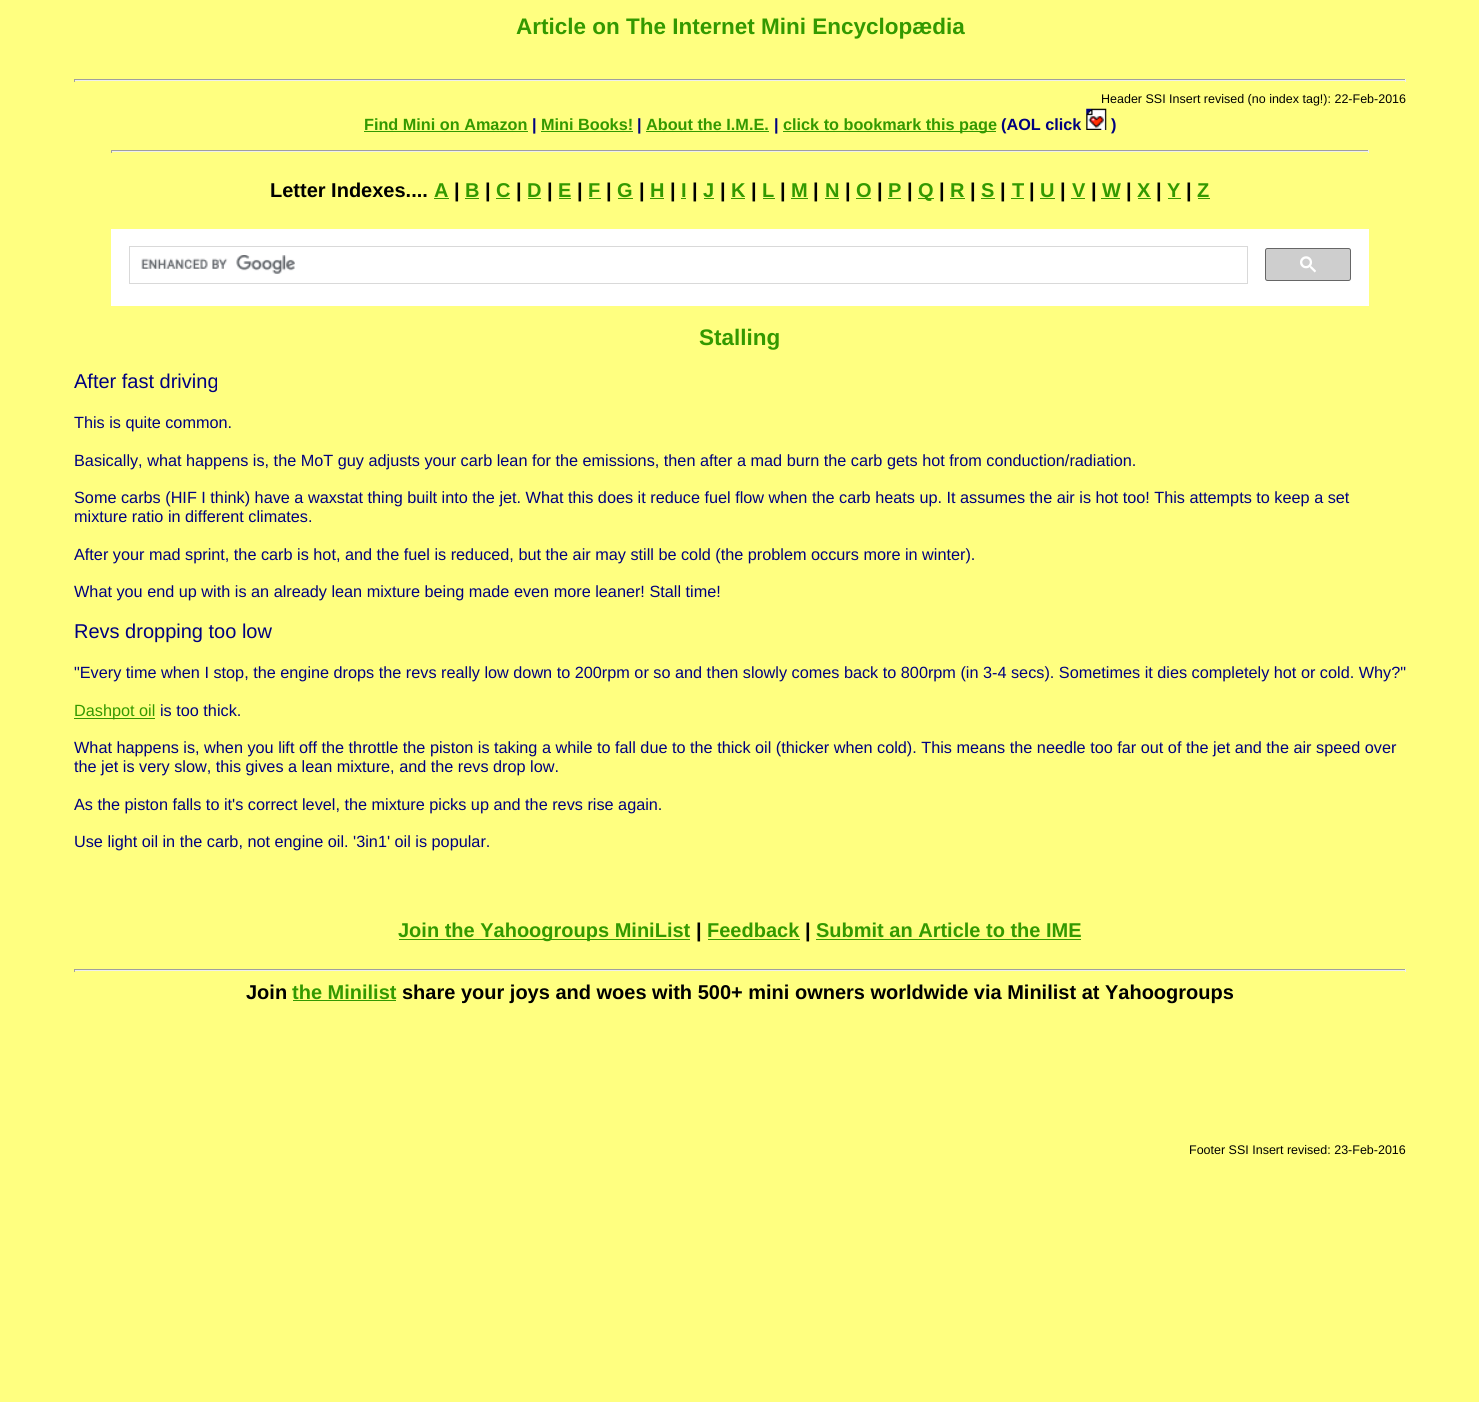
#include <cairo.h>
#include <math.h>
#include <stddef.h>

static cairo_t *c;
static void C(unsigned color){cairo_set_source_rgb(c, (color >> 16) / 255.0, (color >> 8 & 255) / 255.0, (color & 255) / 255.0);}
static void F(const char *family, double size, int italic, int bold){cairo_select_font_face(c, family, italic ? CAIRO_FONT_SLANT_ITALIC : CAIRO_FONT_SLANT_NORMAL,bold ? CAIRO_FONT_WEIGHT_BOLD : CAIRO_FONT_WEIGHT_NORMAL);cairo_set_font_size(c, size);}
static void T(double x, double y, const char *s){cairo_move_to(c, x, y);cairo_show_text(c, s);}
static void R(double x, double y, double w, double h){cairo_rectangle(c, x, y, w, h);cairo_fill(c);}
static void Q(double x, double y, double w, double h, double r){cairo_new_sub_path(c);cairo_arc(c, x + w - r, y + h - r, r, 0, M_PI / 2);cairo_arc(c, x + r, y + h - r, r, M_PI / 2, M_PI);cairo_arc(c, x + r, y + r, r, M_PI, 1.5 * M_PI);cairo_arc(c, x + w - r, y + r, r, 1.5 * M_PI, 2 * M_PI);cairo_close_path(c);}
static void I(const char *path, double x, double y, double w, double h){cairo_surface_t *image = cairo_image_surface_create_from_png(path);cairo_save(c);cairo_set_source_surface(c, image, x, y);cairo_rectangle(c, x, y, w, h);cairo_fill(c);cairo_restore(c);cairo_surface_destroy(image);}
int main(void) {
cairo_surface_t *surface = cairo_image_surface_create(CAIRO_FORMAT_RGB24, 1479, 1402);
c = cairo_create(surface);
cairo_font_options_t *options = cairo_font_options_create();
cairo_font_options_set_hint_metrics(options, CAIRO_HINT_METRICS_OFF);
cairo_font_options_set_hint_style(options, CAIRO_HINT_STYLE_NONE);
cairo_set_font_options(c, options);
cairo_set_miter_limit(c, 4);
C(0xffff80);
cairo_paint(c);
F("Liberation Sans",22.5,0,1);
C(0x339900);
T(516,34,"Article on The Internet Mini Encyclopædia");
C(0x9f9f9f);
R(74,79,1332,1);
C(0xeeeeee);
R(1405,79,1,3);
R(74,80,1332,1);
C(0x9f9f9f);
R(74,79,1,3);
F("Liberation Sans",12.5,0,0);
C(0x000000);
T(1101,103,"Header SSI Insert revised (no index tag!): 22-Feb-2016");
F("Liberation Sans",16.25,0,1);
C(0x339900);
T(364,130,"Find Mini on Amazon");
R(364,131,164,1);
C(0x000080);
T(532,130,"|");
C(0x339900);
T(541,130,"Mini Books!");
R(541,131,92,1);
C(0x000080);
T(637,130,"|");
C(0x339900);
T(646,130,"About the I.M.E.");
R(646,131,123,1);
C(0x000080);
T(774,130,"|");
C(0x339900);
R(783,131,213,1);
T(783,130,"click to bookmark this page");
C(0x000080);
T(1001,130,"(AOL click");
I("1.png",1086,108,21,22);
T(1111,130,")");
C(0x9f9f9f);
R(111,150,1258,1);
C(0xeeeeee);
R(1368,150,1,3);
R(111,151,1258,1);
C(0x9f9f9f);
R(111,150,1,3);
F("Liberation Sans",20,0,1);
C(0x000000);
T(270,197,"Letter Indexes....");
C(0x339900);
T(434,197,"A");
R(434,198,15,1);
C(0x000000);
T(454,197,"|");
C(0x339900);
T(465,197,"B");
R(465,198,14,1);
C(0x000000);
T(485,197,"|");
C(0x339900);
T(496,197,"C");
R(496,198,14,1);
C(0x000000);
T(516,197,"|");
C(0x339900);
T(527,197,"D");
R(528,198,13,1);
C(0x000000);
T(547,197,"|");
C(0x339900);
T(558,197,"E");
R(559,198,12,1);
C(0x000000);
T(577,197,"|");
C(0x339900);
T(588,197,"F");
R(589,198,12,1);
C(0x000000);
T(606,197,"|");
C(0x339900);
T(617,197,"G");
R(618,198,15,1);
C(0x000000);
T(639,197,"|");
C(0x339900);
T(650,197,"H");
R(650,198,14,1);
C(0x000000);
T(670,197,"|");
C(0x339900);
T(681,197,"I");
R(681,198,5,1);
C(0x000000);
T(692,197,"|");
C(0x339900);
T(703,197,"J");
R(704,198,10,1);
C(0x000000);
T(720,197,"|");
C(0x339900);
T(731,197,"K");
R(731,198,14,1);
C(0x000000);
T(751,197,"|");
C(0x339900);
T(762,197,"L");
R(763,198,12,1);
C(0x000000);
T(780,197,"|");
C(0x339900);
T(791,197,"M");
R(791,198,17,1);
C(0x000000);
T(813,197,"|");
C(0x339900);
T(825,197,"N");
R(825,198,14,1);
C(0x000000);
T(845,197,"|");
C(0x339900);
T(856,197,"O");
R(856,198,15,1);
C(0x000000);
T(877,197,"|");
C(0x339900);
T(888,197,"P");
R(888,198,13,1);
C(0x000000);
T(907,197,"|");
C(0x339900);
R(918,198,16,1);
T(918,197,"Q");
C(0x000000);
T(939,197,"|");
C(0x339900);
T(950,197,"R");
R(950,198,15,1);
C(0x000000);
T(970,197,"|");
C(0x339900);
T(981,197,"S");
R(981,198,14,1);
C(0x000000);
T(1000,197,"|");
C(0x339900);
T(1012,197,"T");
R(1011,198,13,1);
C(0x000000);
T(1029,197,"|");
C(0x339900);
T(1040,197,"U");
R(1040,198,15,1);
C(0x000000);
T(1060,197,"|");
C(0x339900);
T(1072,197,"V");
R(1071,198,14,1);
C(0x000000);
T(1091,197,"|");
C(0x339900);
T(1102,197,"W");
R(1101,198,19,1);
C(0x000000);
T(1126,197,"|");
C(0x339900);
T(1137,197,"X");
R(1138,198,13,1);
C(0x000000);
T(1156,197,"|");
C(0x339900);
T(1167,197,"Y");
R(1168,198,13,1);
C(0x000000);
T(1186,197,"|");
C(0x339900);
T(1197,197,"Z");
R(1198,198,12,1);
C(0xffffff);
R(111,229,1258,77);
cairo_rectangle(c,129.5,246.5,1118,37);
C(0xd9d9d9);
cairo_set_line_width(c,1);
cairo_stroke(c);
I("2.png",141,255,154,19);
C(0xcecece);
Q(1265.5,248.5,85,32,2);
cairo_fill_preserve(c);
C(0x666666);
cairo_stroke(c);
I("3.png",1300,256,16,17);
F("Liberation Sans",22.5,0,1);
C(0x339900);
T(699,345,"Stalling");
F("Liberation Sans",20,0,0);
C(0x000080);
T(74,388,"After fast driving");
F("Liberation Sans",16.25,0,0);
T(74,428,"This is quite common.");
T(74,466,"Basically, what happens is, the MoT guy adjusts your carb lean for the emissions, then after a mad burn the carb gets hot from conduction/radiation.");
T(74,503,"Some carbs (HIF I think) have a waxstat thing built into the jet. What this does it reduce fuel flow when the carb heats up. It assumes the air is hot too! This attempts to keep a set");
T(74,522,"mixture ratio in different climates.");
T(74,560,"After your mad sprint, the carb is hot, and the fuel is reduced, but the air may still be cold (the problem occurs more in winter).");
T(74,597,"What you end up with is an already lean mixture being made even more leaner! Stall time!");
F("Liberation Sans",20,0,0);
T(74,638,"Revs dropping too low");
F("Liberation Sans",16.25,0,0);
T(74,678,"\"Every time when I stop, the engine drops the revs really low down to 200rpm or so and then slowly comes back to 800rpm (in 3-4 secs). Sometimes it dies completely hot or cold. Why?\"");
C(0x339900);
R(74,718,81,1);
T(74,716,"Dashpot oil");
C(0x000080);
T(160,716,"is too thick.");
T(74,753,"What happens is, when you lift off the throttle the piston is taking a while to fall due to the thick oil (thicker when cold). This means the needle too far out of the jet and the air speed over");
T(74,772,"the jet is very slow, this gives a lean mixture, and the revs drop low.");
T(74,810,"As the piston falls to it's correct level, the mixture picks up and the revs rise again.");
T(74,847,"Use light oil in the carb, not engine oil. '3in1' oil is popular.");
C(0x339900);
R(399,939,291,1);
F("Liberation Sans",20,0,1);
T(398,937,"Join the Yahoogroups MiniList");
C(0x000000);
T(696,937,"|");
C(0x339900);
T(707,937,"Feedback");
R(708,939,92,1);
C(0x000000);
T(805,937,"|");
C(0x339900);
T(816,937,"Submit an Article to the IME");
R(816,939,265,1);
C(0x9f9f9f);
R(74,969,1332,1);
C(0xeeeeee);
R(1405,969,1,3);
R(74,970,1332,1);
C(0x9f9f9f);
R(74,969,1,3);
C(0x000000);
T(246,999,"Join");
C(0x339900);
T(292,999,"the Minilist");
R(293,1000,103,1);
C(0x000000);
T(402,999,"share your joys and woes with 500+ mini owners worldwide via Minilist at Yahoogroups");
F("Liberation Sans",12.5,0,0);
T(1189,1154,"Footer SSI Insert revised: 23-Feb-2016");
cairo_surface_write_to_png(surface, "o.png");
cairo_font_options_destroy(options);
cairo_destroy(c);
cairo_surface_destroy(surface);
return 0;
}
